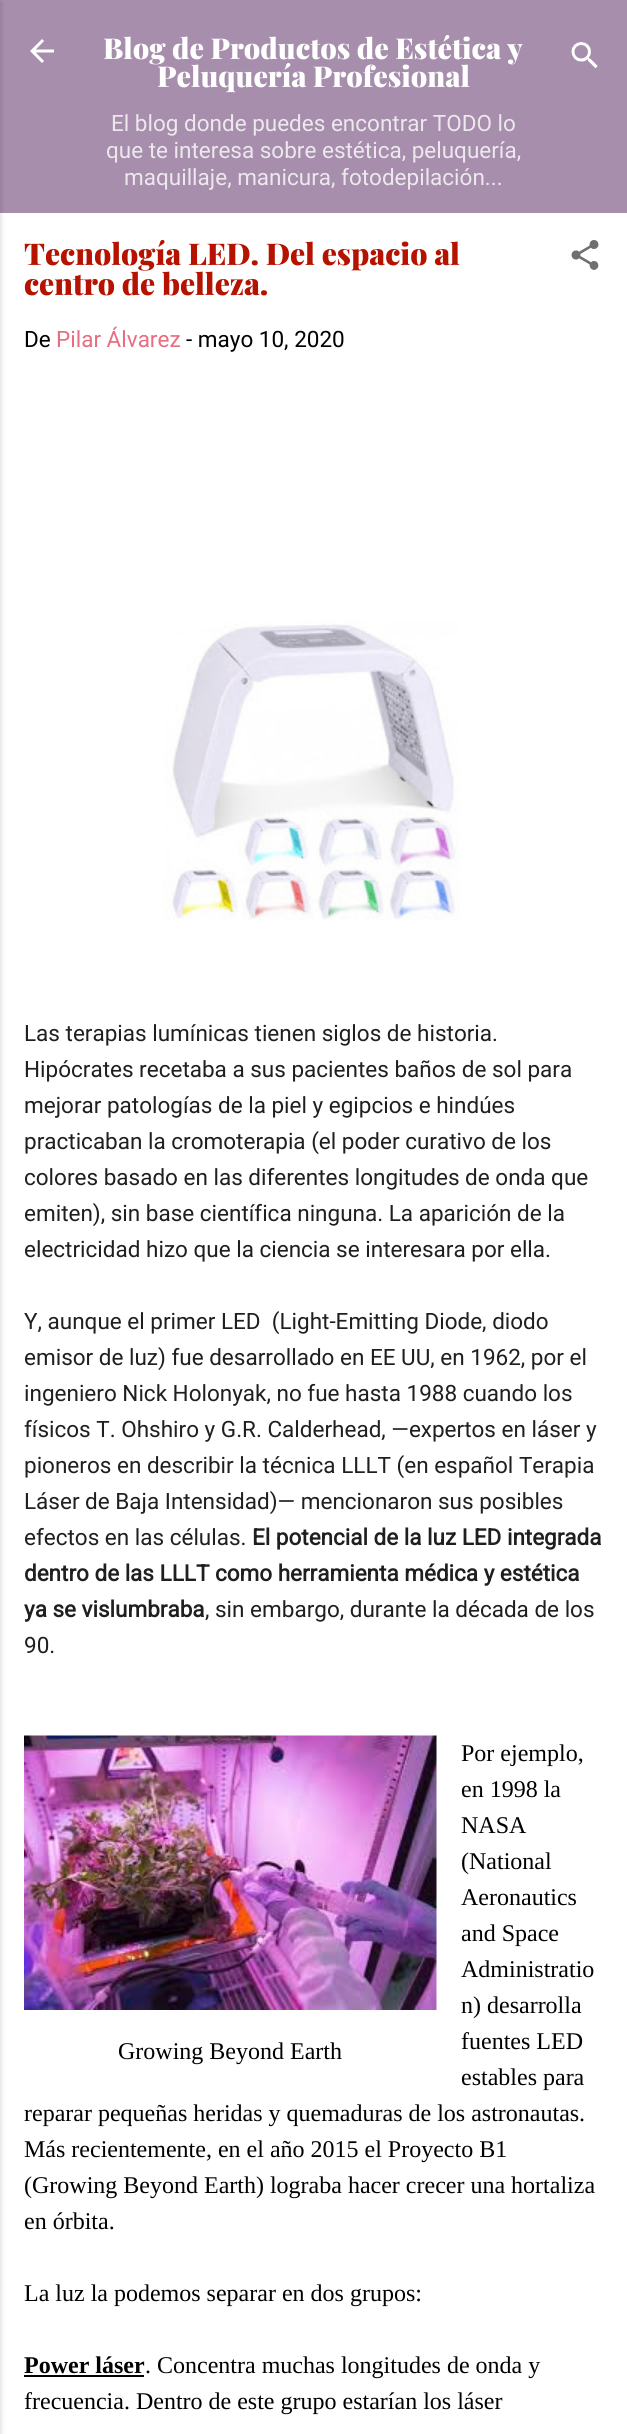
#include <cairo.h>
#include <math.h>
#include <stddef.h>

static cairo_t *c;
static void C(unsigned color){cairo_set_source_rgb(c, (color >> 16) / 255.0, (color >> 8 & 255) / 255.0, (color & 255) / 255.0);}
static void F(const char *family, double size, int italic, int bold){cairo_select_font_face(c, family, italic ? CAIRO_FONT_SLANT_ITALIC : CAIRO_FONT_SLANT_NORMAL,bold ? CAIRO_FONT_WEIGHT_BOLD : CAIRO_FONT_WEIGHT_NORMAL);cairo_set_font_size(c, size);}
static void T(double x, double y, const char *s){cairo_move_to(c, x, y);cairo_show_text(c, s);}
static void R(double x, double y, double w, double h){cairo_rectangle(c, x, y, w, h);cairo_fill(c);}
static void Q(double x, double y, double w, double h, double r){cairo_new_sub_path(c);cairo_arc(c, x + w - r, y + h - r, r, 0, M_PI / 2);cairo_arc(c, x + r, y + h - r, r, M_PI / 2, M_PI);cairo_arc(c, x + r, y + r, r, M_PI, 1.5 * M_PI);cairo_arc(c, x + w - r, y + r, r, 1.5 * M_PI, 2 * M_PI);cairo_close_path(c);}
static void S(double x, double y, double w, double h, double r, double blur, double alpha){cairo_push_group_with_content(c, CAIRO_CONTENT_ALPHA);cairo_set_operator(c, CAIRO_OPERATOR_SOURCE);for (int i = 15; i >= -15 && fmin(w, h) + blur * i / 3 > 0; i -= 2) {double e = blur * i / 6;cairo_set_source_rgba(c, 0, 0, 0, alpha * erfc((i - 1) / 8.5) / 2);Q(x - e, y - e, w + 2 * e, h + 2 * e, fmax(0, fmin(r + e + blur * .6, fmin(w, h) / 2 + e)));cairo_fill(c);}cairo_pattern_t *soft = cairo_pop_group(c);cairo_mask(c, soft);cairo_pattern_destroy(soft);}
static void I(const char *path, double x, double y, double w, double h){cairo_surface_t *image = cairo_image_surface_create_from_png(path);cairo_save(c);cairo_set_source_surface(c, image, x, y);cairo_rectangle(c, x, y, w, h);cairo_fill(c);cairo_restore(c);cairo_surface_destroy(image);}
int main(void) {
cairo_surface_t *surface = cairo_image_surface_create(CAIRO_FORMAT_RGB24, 627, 2434);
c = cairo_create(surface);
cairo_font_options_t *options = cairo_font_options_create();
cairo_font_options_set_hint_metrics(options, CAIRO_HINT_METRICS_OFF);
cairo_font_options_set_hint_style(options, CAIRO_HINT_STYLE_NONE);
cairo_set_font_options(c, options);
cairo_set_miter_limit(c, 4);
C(0xa68eac);
cairo_paint(c);
C(0xffffff);
R(0,213,627,2221);
C(0x000000);
S(-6,2,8,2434,0,2,.1);
I("1.png",30,39,24,24);
F("Playfair Display Black",28.75,0,0);
C(0xffffff);
T(103,59,"Blog de Productos de Estética y");
T(157,87,"Peluquería Profesional");
F("Roboto",22.5,0,0);
C(0xede8ee);
T(111,131,"El blog donde puedes encontrar TODO lo");
T(106,158,"que te interesa sobre estética, peluquería,");
T(124,185,"maquillaje, manicura, fotodepilación...");
I("2.png",571,42,27,27);
F("Playfair Display Black",30,0,0);
C(0xb51200);
T(24,265,"Tecnología LED. Del espacio al");
T(24,295,"centro de belleza.");
I("3.png",571,240,28,30);
F("Roboto",22.5,0,0);
C(0x000000);
T(24,347,"De");
C(0xe76d80);
T(56,347,"Pilar Álvarez");
C(0x000000);
T(186,347,"- mayo 10, 2020");
I("4.png",164,621,296,299);
C(0x201f20);
T(24,1041,"Las terapias lumínicas tienen siglos de historia.");
T(24,1077,"Hipócrates recetaba a sus pacientes baños de sol para");
T(24,1113,"mejorar patologías de la piel y egipcios e hindúes");
T(24,1149,"practicaban la cromoterapia (el poder curativo de los");
T(24,1185,"colores basado en las diferentes longitudes de onda que");
T(24,1221,"emiten), sin base científica ninguna. La aparición de la");
T(24,1257,"electricidad hizo que la ciencia se interesara por ella.");
T(24,1329,"Y, aunque el primer LED  (Light-Emitting Diode, diodo");
T(24,1365,"emisor de luz) fue desarrollado en EE UU, en 1962, por el");
T(24,1401,"ingeniero Nick Holonyak, no fue hasta 1988 cuando los");
T(24,1437,"físicos T. Ohshiro y G.R. Calderhead, —expertos en láser y");
T(24,1473,"pioneros en describir la técnica LLLT (en español Terapia");
T(24,1509,"Láser de Baja Intensidad)— mencionaron sus posibles");
T(24,1545,"efectos en las células.");
F("Roboto",22.5,0,1);
T(252,1545,"El potencial de la luz LED integrada");
T(24,1581,"dentro de las LLLT como herramienta médica y estética");
T(24,1617,"ya se vislumbraba");
F("Roboto",22.5,0,0);
T(205,1617,", sin embargo, durante la década de los");
T(24,1653,"90.");
F("Liberation Serif",24,0,0);
C(0x000000);
T(461,1761,"Por ejemplo,");
T(461,1797,"en 1998 la");
T(461,1833,"NASA");
T(461,1869,"(National");
T(461,1905,"Aeronautics");
T(461,1941,"and Space");
T(461,1977,"Administratio");
T(461,2013,"n) desarrolla");
I("5.png",24,1735,413,275);
T(118,2059,"Growing Beyond Earth");
T(461,2049,"fuentes LED");
T(461,2085,"estables para");
T(24,2121,"reparar pequeñas heridas y quemaduras de los astronautas.");
T(24,2157,"Más recientemente, en el año 2015 el Proyecto B1");
T(24,2193,"(Growing Beyond Earth) lograba hacer crecer una hortaliza");
T(24,2229,"en órbita.");
T(24,2301,"La luz la podemos separar en dos grupos:");
F("Liberation Serif",24,0,1);
T(24,2373,"Power láser");
R(24,2375,120,2);
F("Liberation Serif",24,0,0);
T(145,2373,". Concentra muchas longitudes de onda y");
T(24,2409,"frecuencia. Dentro de este grupo estarían los láser");
cairo_surface_write_to_png(surface, "o.png");
cairo_font_options_destroy(options);
cairo_destroy(c);
cairo_surface_destroy(surface);
return 0;
}
